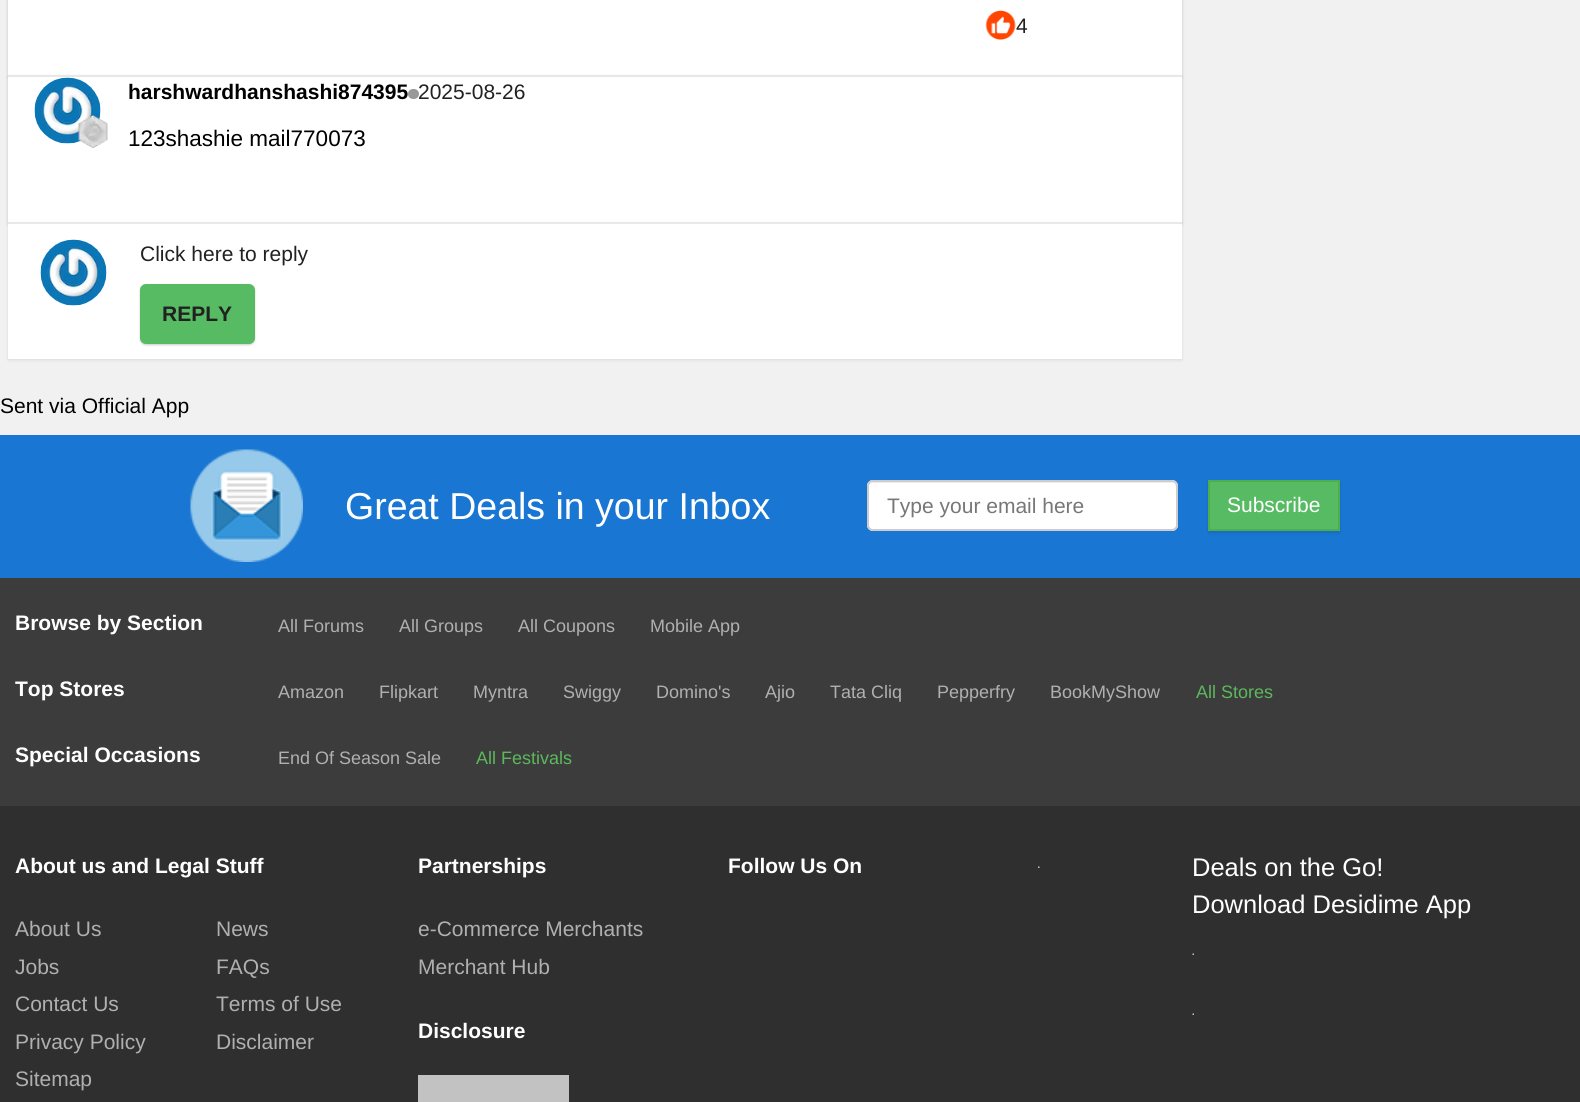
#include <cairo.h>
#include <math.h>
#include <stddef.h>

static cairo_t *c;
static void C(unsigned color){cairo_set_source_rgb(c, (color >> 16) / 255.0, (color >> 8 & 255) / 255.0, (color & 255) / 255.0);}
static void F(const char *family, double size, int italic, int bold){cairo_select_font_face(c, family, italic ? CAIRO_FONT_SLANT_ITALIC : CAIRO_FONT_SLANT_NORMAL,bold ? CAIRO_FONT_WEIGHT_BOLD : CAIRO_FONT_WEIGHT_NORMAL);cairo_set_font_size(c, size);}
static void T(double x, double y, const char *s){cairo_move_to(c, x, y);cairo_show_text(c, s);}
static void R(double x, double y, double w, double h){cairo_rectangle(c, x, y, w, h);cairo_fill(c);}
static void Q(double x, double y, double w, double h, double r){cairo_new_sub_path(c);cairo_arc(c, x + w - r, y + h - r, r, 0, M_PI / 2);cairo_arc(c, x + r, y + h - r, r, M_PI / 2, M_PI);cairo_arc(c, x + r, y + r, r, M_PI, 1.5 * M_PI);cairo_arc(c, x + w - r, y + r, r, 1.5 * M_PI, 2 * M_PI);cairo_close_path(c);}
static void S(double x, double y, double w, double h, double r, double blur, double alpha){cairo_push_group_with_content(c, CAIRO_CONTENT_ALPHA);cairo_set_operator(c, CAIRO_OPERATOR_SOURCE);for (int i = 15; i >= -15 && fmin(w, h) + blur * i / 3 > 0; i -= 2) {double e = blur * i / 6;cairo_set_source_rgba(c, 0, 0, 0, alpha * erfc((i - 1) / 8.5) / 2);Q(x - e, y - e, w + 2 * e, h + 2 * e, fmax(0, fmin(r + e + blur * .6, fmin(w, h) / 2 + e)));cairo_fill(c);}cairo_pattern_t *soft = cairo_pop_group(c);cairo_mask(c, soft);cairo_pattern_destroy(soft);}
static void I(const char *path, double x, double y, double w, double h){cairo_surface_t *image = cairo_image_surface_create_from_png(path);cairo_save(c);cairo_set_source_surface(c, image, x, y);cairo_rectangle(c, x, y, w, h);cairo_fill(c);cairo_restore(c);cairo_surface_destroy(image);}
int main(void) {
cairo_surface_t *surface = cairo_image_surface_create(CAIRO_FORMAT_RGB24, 1580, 1102);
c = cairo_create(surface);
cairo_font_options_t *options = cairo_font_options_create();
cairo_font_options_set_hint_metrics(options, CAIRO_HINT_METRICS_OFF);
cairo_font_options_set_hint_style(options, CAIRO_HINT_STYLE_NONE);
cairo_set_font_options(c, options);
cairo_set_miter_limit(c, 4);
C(0xf1f1f1);
cairo_paint(c);
C(0x000000);
S(8,-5,1174,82,0,1.5,.1);
C(0xffffff);
R(8,0,1174,75);
cairo_save(c);
cairo_set_fill_rule(c,CAIRO_FILL_RULE_EVEN_ODD);
cairo_new_path(c);
cairo_move_to(c,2,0);
cairo_line_to(c,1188,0);
cairo_line_to(c,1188,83);
cairo_line_to(c,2,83);
cairo_close_path(c);
cairo_move_to(c,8,-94);
cairo_line_to(c,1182,-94);
cairo_line_to(c,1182,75);
cairo_line_to(c,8,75);
cairo_close_path(c);
cairo_clip(c);
C(0x000000);
S(8,-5,1174,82,0,1.5,.1);
cairo_restore(c);
I("1.png",985,10,31,30);
F("Liberation Sans",21,0,0);
C(0x212121);
T(1016,33,"4");
C(0x000000);
S(8,77,1174,147,0,1.5,.1);
C(0xffffff);
R(8,77,1174,145);
cairo_save(c);
cairo_set_fill_rule(c,CAIRO_FILL_RULE_EVEN_ODD);
cairo_new_path(c);
cairo_move_to(c,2,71);
cairo_line_to(c,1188,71);
cairo_line_to(c,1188,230);
cairo_line_to(c,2,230);
cairo_close_path(c);
cairo_move_to(c,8,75);
cairo_line_to(c,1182,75);
cairo_line_to(c,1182,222);
cairo_line_to(c,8,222);
cairo_close_path(c);
cairo_clip(c);
C(0x000000);
S(8,77,1174,147,0,1.5,.1);
cairo_restore(c);
C(0xe8e8e8);
R(8,75,1174,2);
I("2.png",34,77,67,67);
I("3.png",78,115,30,33);
F("Liberation Sans",21,0,1);
C(0x000000);
T(128,99,"harshwardhanshashi874395");
C(0x999999);
Q(408,89,11,10,5);
cairo_fill(c);
F("Liberation Sans",21,0,0);
C(0x212121);
T(418,99,"2025-08-26");
F("Liberation Sans",22.5,0,0);
C(0x000000);
T(128,146,"123shashie mail770073");
C(0x000000);
S(8,224,1174,136,0,1.5,.1);
C(0xffffff);
R(8,224,1174,135);
C(0xe8e8e8);
R(8,222,1174,2);
I("4.png",40,239,67,67);
F("Liberation Sans",21,0,0);
C(0x212121);
T(140,261,"Click here to reply");
C(0x000000);
S(140,285,115,60,6,1,.2);
C(0x57bb63);
Q(140,284,115,60,6);
cairo_fill(c);
F("Liberation Sans",21,0,1);
C(0x212121);
T(162,321,"REPLY");
F("Liberation Sans",21,0,0);
C(0x000000);
T(0,413,"Sent via Official App");
C(0x1976d2);
R(0,435,1580,143);
I("5.png",190,449,113,113);
F("Liberation Sans",37.5,0,0);
C(0xffffff);
T(345,519,"Great Deals in your Inbox");
Q(867,480,311,51,6);
cairo_fill(c);
C(0xececec);
cairo_new_path(c);
cairo_move_to(c,873,483);
cairo_line_to(c,1172,483);
cairo_curve_to(c,1174,483,1176,485,1176,488);
cairo_line_to(c,1176,487);
cairo_curve_to(c,1176,484,1174,482,1171,482);
cairo_line_to(c,874,482);
cairo_curve_to(c,872,482,871,483,870,484);
cairo_close_path(c);
cairo_fill(c);
Q(868,481,309,49,5);
C(0xcccccc);
cairo_stroke(c);
F("Liberation Sans",21,0,0);
C(0x777777);
T(887,513,"Type your email here");
C(0x000000);
S(1208,482,132,51,0,1.5,.1);
C(0x57bb63);
cairo_rectangle(c,1209,481,130,49);
cairo_fill_preserve(c);
C(0x4cae4c);
cairo_stroke(c);
C(0xffffff);
T(1227,512,"Subscribe");
C(0x3c3c3c);
R(0,578,1580,228);
F("Liberation Sans",21,0,1);
C(0xffffff);
T(15,630,"Browse by Section");
F("Liberation Sans",18,0,0);
C(0xb0b0b0);
T(278,632,"All Forums");
T(399,632,"All Groups");
T(518,632,"All Coupons");
T(650,632,"Mobile App");
F("Liberation Sans",21,0,1);
C(0xffffff);
T(15,696,"Top Stores");
F("Liberation Sans",18,0,0);
C(0xb0b0b0);
T(278,698,"Amazon");
T(379,698,"Flipkart");
T(473,698,"Myntra");
T(563,698,"Swiggy");
T(656,698,"Domino's");
T(765,698,"Ajio");
T(830,698,"Tata Cliq");
T(937,698,"Pepperfry");
T(1050,698,"BookMyShow");
C(0x5cb85c);
T(1196,698,"All Stores");
F("Liberation Sans",21,0,1);
C(0xffffff);
T(15,762,"Special Occasions");
F("Liberation Sans",18,0,0);
C(0xb0b0b0);
T(278,764,"End Of Season Sale");
C(0x5cb85c);
T(476,764,"All Festivals");
C(0x2f2f2f);
R(0,806,1580,296);
F("Liberation Sans",21,0,1);
C(0xffffff);
T(15,873,"About us and Legal Stuff");
F("Liberation Sans",21,0,0);
C(0xb0b0b0);
T(15,936,"About Us");
T(15,974,"Jobs");
T(15,1011,"Contact Us");
T(15,1049,"Privacy Policy");
T(15,1086,"Sitemap");
T(216,936,"News");
T(216,974,"FAQs");
T(216,1011,"Terms of Use");
T(216,1049,"Disclaimer");
F("Liberation Sans",21,0,1);
C(0xffffff);
T(418,873,"Partnerships");
F("Liberation Sans",21,0,0);
C(0xb0b0b0);
T(418,936,"e-Commerce Merchants");
T(418,974,"Merchant Hub");
F("Liberation Sans",21,0,1);
C(0xffffff);
T(418,1038,"Disclosure");
C(0xc2c2c2);
R(418,1075,151,27);
C(0xffffff);
T(728,873,"Follow Us On");
I("6.png",1038,866,2,2);
F("Liberation Sans",25.5,0,0);
T(1192,876,"Deals on the Go!");
T(1192,913,"Download Desidime App");
I("7.png",1192,953,2,2);
I("7.png",1192,1013,2,2);
cairo_surface_write_to_png(surface, "o.png");
cairo_font_options_destroy(options);
cairo_destroy(c);
cairo_surface_destroy(surface);
return 0;
}
